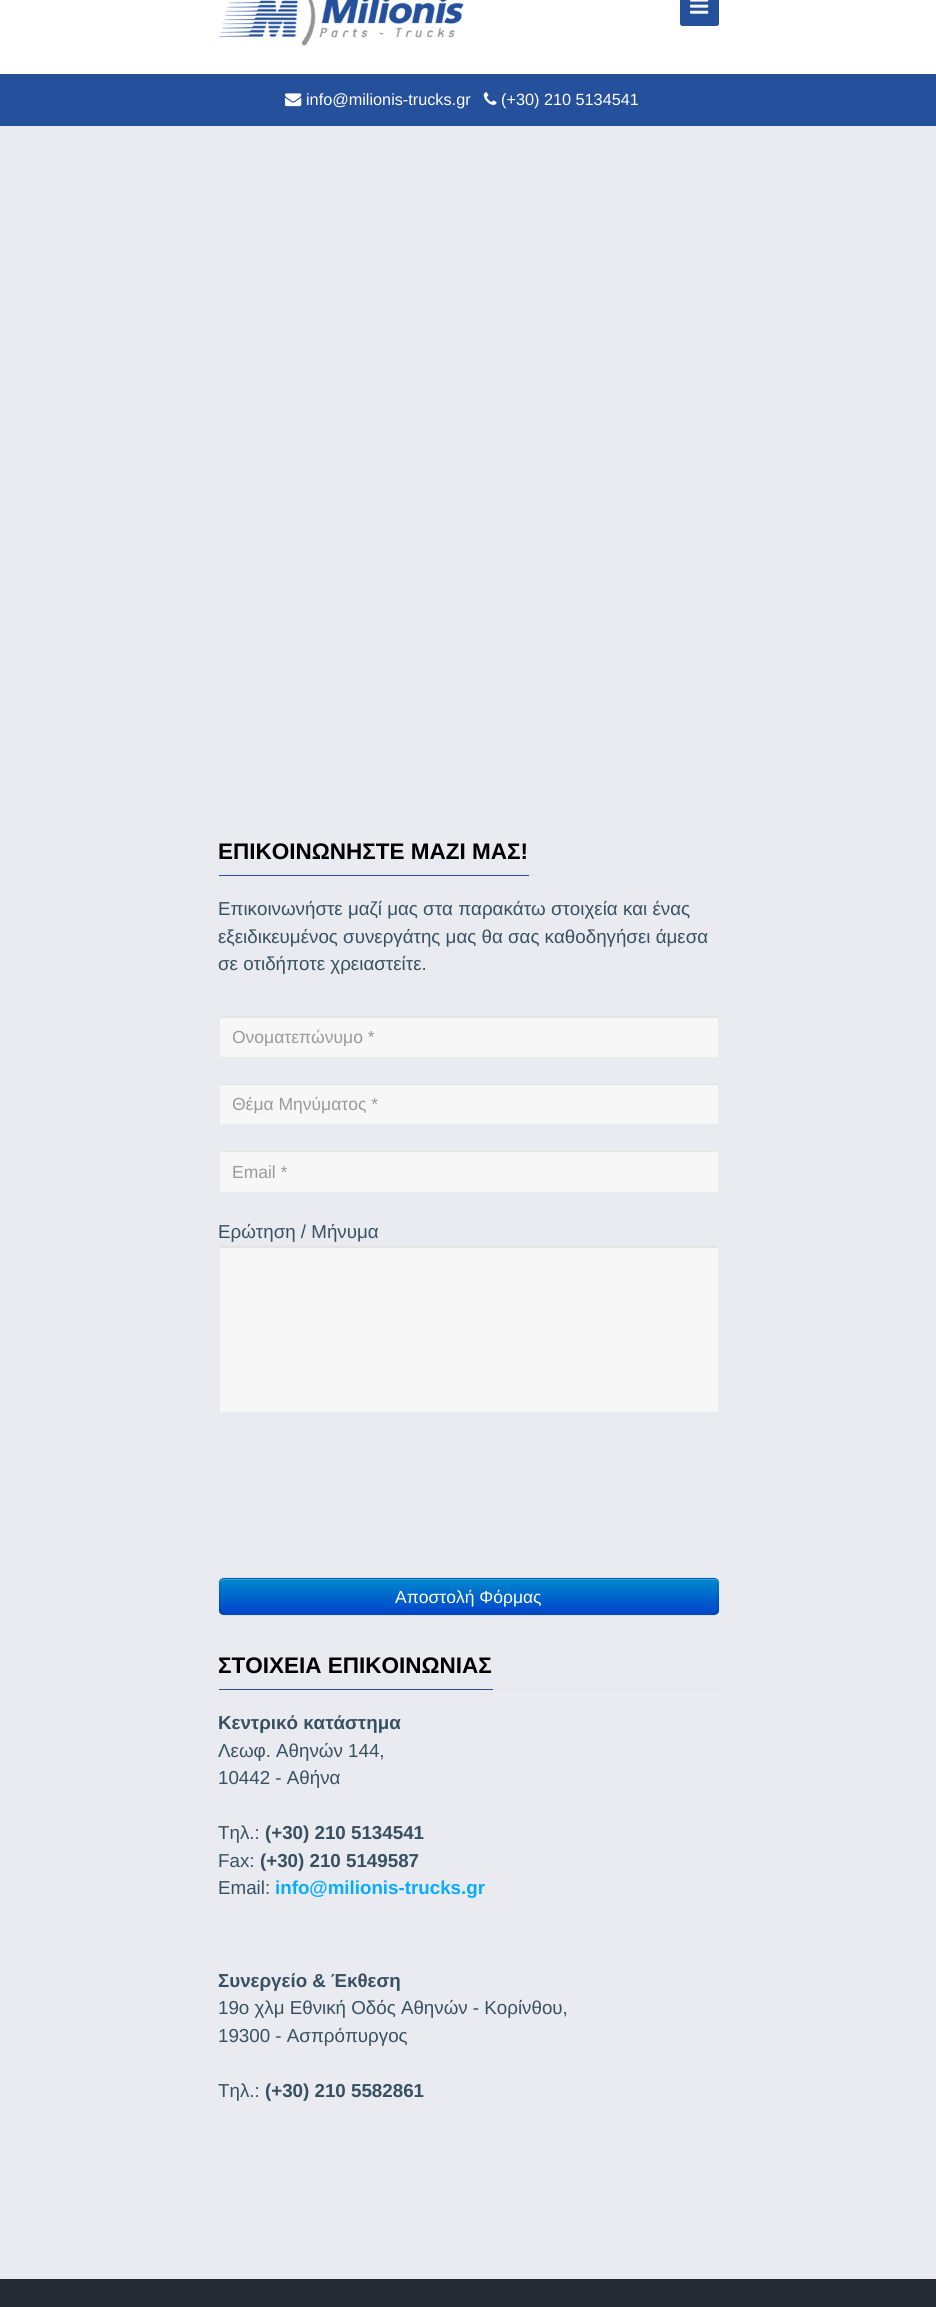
#include <cairo.h>
#include <math.h>
#include <stddef.h>

static cairo_t *c;
static void C(unsigned color){cairo_set_source_rgb(c, (color >> 16) / 255.0, (color >> 8 & 255) / 255.0, (color & 255) / 255.0);}
static void F(const char *family, double size, int italic, int bold){cairo_select_font_face(c, family, italic ? CAIRO_FONT_SLANT_ITALIC : CAIRO_FONT_SLANT_NORMAL,bold ? CAIRO_FONT_WEIGHT_BOLD : CAIRO_FONT_WEIGHT_NORMAL);cairo_set_font_size(c, size);}
static void T(double x, double y, const char *s){cairo_move_to(c, x, y);cairo_show_text(c, s);}
static void R(double x, double y, double w, double h){cairo_rectangle(c, x, y, w, h);cairo_fill(c);}
static void Q(double x, double y, double w, double h, double r){cairo_new_sub_path(c);cairo_arc(c, x + w - r, y + h - r, r, 0, M_PI / 2);cairo_arc(c, x + r, y + h - r, r, M_PI / 2, M_PI);cairo_arc(c, x + r, y + r, r, M_PI, 1.5 * M_PI);cairo_arc(c, x + w - r, y + r, r, 1.5 * M_PI, 2 * M_PI);cairo_close_path(c);}
static void S(double x, double y, double w, double h, double r, double blur, double alpha){cairo_push_group_with_content(c, CAIRO_CONTENT_ALPHA);cairo_set_operator(c, CAIRO_OPERATOR_SOURCE);for (int i = 15; i >= -15 && fmin(w, h) + blur * i / 3 > 0; i -= 2) {double e = blur * i / 6;cairo_set_source_rgba(c, 0, 0, 0, alpha * erfc((i - 1) / 8.5) / 2);Q(x - e, y - e, w + 2 * e, h + 2 * e, fmax(0, fmin(r + e + blur * .6, fmin(w, h) / 2 + e)));cairo_fill(c);}cairo_pattern_t *soft = cairo_pop_group(c);cairo_mask(c, soft);cairo_pattern_destroy(soft);}
static void I(const char *path, double x, double y, double w, double h){cairo_surface_t *image = cairo_image_surface_create_from_png(path);cairo_save(c);cairo_set_source_surface(c, image, x, y);cairo_rectangle(c, x, y, w, h);cairo_fill(c);cairo_restore(c);cairo_surface_destroy(image);}
int main(void) {
cairo_surface_t *surface = cairo_image_surface_create(CAIRO_FORMAT_RGB24, 936, 2307);
c = cairo_create(surface);
cairo_font_options_t *options = cairo_font_options_create();
cairo_font_options_set_hint_metrics(options, CAIRO_HINT_METRICS_OFF);
cairo_font_options_set_hint_style(options, CAIRO_HINT_STYLE_NONE);
cairo_set_font_options(c, options);
cairo_set_miter_limit(c, 4);
cairo_pattern_t *gradient;
C(0xe9ebf1);
cairo_paint(c);
C(0xffffff);
R(0,0,936,74);
I("1.png",219,0,245,46);
C(0x25509c);
Q(680,-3,39,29,2.5);
cairo_fill(c);
I("2.png",690,0,19,14);
R(0,74,936,52);
I("3.png",285,93,17,14);
F("Arimo",16.25,0,0);
C(0xffffff);
T(306,105,"info@milionis-trucks.gr");
I("4.png",483,92,14,13);
T(501,105,"(+30) 210 5134541");
C(0x25509c);
R(219,875,310,1);
F("Arimo",22.5,0,1);
C(0x000000);
T(218,859,"ΕΠΙΚΟΙΝΩΝΗΣΤΕ ΜΑΖΙ ΜΑΣ!");
C(0xe6e6e6);
R(529,875,190,1);
F("Arimo",18.75,0,0);
C(0x385160);
T(218,915,"Επικοινωνήστε μαζί μας στα παρακάτω στοιχεία και ένας");
T(218,943,"εξειδικευμένος συνεργάτης μας θα σας καθοδηγήσει άμεσα");
T(218,970,"σε οτιδήποτε χρειαστείτε.");
C(0xf7f7f7);
Q(219,1015,500,43,2.5);
cairo_fill(c);
C(0xe4e4e4);
cairo_new_path(c);
cairo_move_to(c,221,1018);
cairo_line_to(c,716,1018);
cairo_curve_to(c,717,1018,718,1018,718,1019);
cairo_line_to(c,718,1017);
cairo_curve_to(c,718,1016,718,1016,717,1016);
cairo_line_to(c,221,1016);
cairo_curve_to(c,220,1016,220,1016,220,1017);
cairo_line_to(c,220,1019);
cairo_close_path(c);
cairo_fill(c);
Q(219.5,1015.5,499,42,2);
C(0xeaeaea);
cairo_set_line_width(c,1);
cairo_stroke(c);
cairo_save(c);
cairo_rectangle(c,233,1026,472,20);
cairo_clip(c);
F("Liberation Sans",17.5,0,0);
C(0x999999);
T(232,1043,"Ονοματεπώνυμο *");
cairo_restore(c);
C(0xf7f7f7);
Q(219,1083,500,42,2.5);
cairo_fill(c);
C(0xe4e4e4);
cairo_new_path(c);
cairo_move_to(c,221,1085);
cairo_line_to(c,716,1085);
cairo_line_to(c,718,1086);
cairo_line_to(c,718,1084);
cairo_line_to(c,221,1084);
cairo_curve_to(c,220,1084,220,1085,220,1086);
cairo_close_path(c);
cairo_fill(c);
Q(219.5,1083.5,499,41,2);
C(0xeaeaea);
cairo_stroke(c);
cairo_save(c);
cairo_rectangle(c,233,1094,472,20);
cairo_clip(c);
F("Liberation Sans",17.5,0,0);
C(0x999999);
T(232,1110,"Θέμα Μηνύματος *");
cairo_restore(c);
C(0xf7f7f7);
Q(219,1150,500,43,2.5);
cairo_fill(c);
C(0xe4e4e4);
cairo_new_path(c);
cairo_move_to(c,221,1152);
cairo_line_to(c,716,1152);
cairo_curve_to(c,717,1152,718,1153,718,1154);
cairo_line_to(c,718,1152);
cairo_curve_to(c,718,1151,718,1151,717,1151);
cairo_line_to(c,221,1151);
cairo_curve_to(c,220,1151,220,1151,220,1152);
cairo_line_to(c,220,1154);
cairo_close_path(c);
cairo_fill(c);
Q(219.5,1150.5,499,42,2);
C(0xeaeaea);
cairo_stroke(c);
F("Liberation Sans",17.5,0,0);
C(0x999999);
T(232,1178,"Email *");
F("Arimo",18.75,0,0);
C(0x385160);
T(218,1238,"Ερώτηση / Μήνυμα");
C(0xf7f7f7);
Q(219,1245,500,168,2.5);
cairo_fill(c);
C(0xe4e4e4);
cairo_new_path(c);
cairo_move_to(c,221,1248);
cairo_line_to(c,716,1248);
cairo_curve_to(c,717,1248,718,1248,718,1249);
cairo_line_to(c,718,1247);
cairo_curve_to(c,718,1246,718,1246,717,1246);
cairo_line_to(c,221,1246);
cairo_curve_to(c,220,1246,220,1246,220,1247);
cairo_line_to(c,220,1249);
cairo_close_path(c);
cairo_fill(c);
Q(219.5,1245.5,499,167,2);
C(0xeaeaea);
cairo_stroke(c);
C(0x000000);
S(219,1579,500,37,5,1,.05);
C(0x006dcc);
Q(219,1578,500,37,5);
cairo_fill(c);
cairo_save(c);
Q(219,1578,500,37,5);
cairo_clip(c);
gradient = cairo_pattern_create_linear(469,1579,469,1614);
cairo_pattern_add_color_stop_rgba(gradient,0,0,0.533,0.8,1);
cairo_pattern_add_color_stop_rgba(gradient,1,0,0.267,0.8,1);
cairo_set_source(c,gradient);
cairo_pattern_destroy(gradient);
R(219,1579,500,35);
cairo_restore(c);
cairo_set_source_rgba(c,1,1,1,0.2);
cairo_new_path(c);
cairo_move_to(c,224,1580);
cairo_line_to(c,714,1580);
cairo_curve_to(c,716,1580,718,1582,718,1584);
cairo_curve_to(c,718,1581,717,1579,714,1579);
cairo_line_to(c,224,1579);
cairo_curve_to(c,221,1579,220,1581,220,1584);
cairo_curve_to(c,220,1582,222,1580,224,1580);
cairo_close_path(c);
cairo_fill(c);
cairo_new_path(c);
cairo_move_to(c,717,1613);
cairo_line_to(c,714,1614.5);
cairo_line_to(c,224,1614.5);
cairo_line_to(c,220.5,1613);
cairo_set_source_rgba(c,0,0,0,0.25);
cairo_set_line_width(c,1.2);
cairo_stroke(c);
cairo_new_path(c);
cairo_move_to(c,220.5,1613);
cairo_curve_to(c,220,1612.5,219.5,1611,219.5,1610);
cairo_line_to(c,219.5,1582.5);
cairo_curve_to(c,219.5,1581.5,220,1580,220.5,1579.5);
cairo_curve_to(c,221.5,1578.5,222.5,1578,224,1578);
cairo_line_to(c,714,1578);
cairo_curve_to(c,715,1578,716,1578.5,717,1579.5);
cairo_curve_to(c,717.5,1580,718,1581.5,718,1582.5);
cairo_line_to(c,718,1610);
cairo_curve_to(c,718,1611,717.5,1612.5,717,1613);
cairo_set_source_rgba(c,0,0,0,0.1);
cairo_stroke(c);
F("Liberation Sans",17.5,0,0);
C(0xffffff);
T(395,1603,"Αποστολή Φόρμας");
C(0x25509c);
R(219,1689,274,1);
F("Arimo",22.5,0,1);
C(0x000000);
T(218,1673,"ΣΤΟΙΧΕΙΑ ΕΠΙΚΟΙΝΩΝΙΑΣ");
C(0xe6e6e6);
R(493,1689,226,1);
F("Arimo",18.75,0,1);
C(0x385160);
T(218,1729,"Κεντρικό κατάστημα");
F("Arimo",18.75,0,0);
T(218,1757,"Λεωφ. Αθηνών 144,");
T(218,1784,"10442 - Αθήνα");
T(218,1839,"Τηλ.:");
F("Arimo",18.75,0,1);
T(265,1839,"(+30) 210 5134541");
F("Arimo",18.75,0,0);
T(218,1867,"Fax:");
F("Arimo",18.75,0,1);
T(260,1867,"(+30) 210 5149587");
F("Arimo",18.75,0,0);
T(218,1894,"Email:");
F("Arimo",18.75,0,1);
C(0x05acff);
T(275,1894,"info@milionis-trucks.gr");
C(0x385160);
T(218,1987,"Συνεργείο & Έκθεση");
F("Arimo",18.75,0,0);
T(218,2014,"19ο χλμ Εθνική Οδός Αθηνών - Κορίνθου,");
T(218,2042,"19300 - Ασπρόπυργος");
T(218,2097,"Τηλ.:");
F("Arimo",18.75,0,1);
T(265,2097,"(+30) 210 5582861");
C(0x232a34);
R(0,2279,936,28);
cairo_surface_write_to_png(surface, "o.png");
cairo_font_options_destroy(options);
cairo_destroy(c);
cairo_surface_destroy(surface);
return 0;
}
